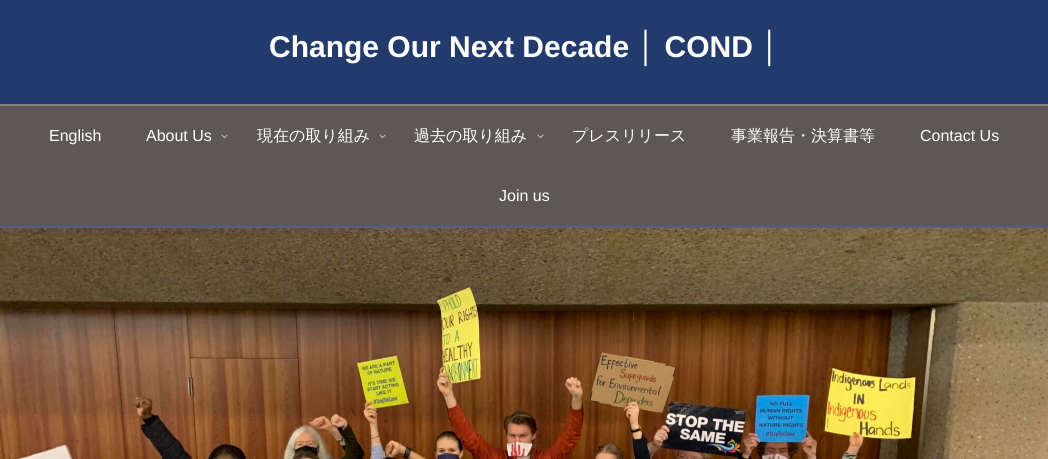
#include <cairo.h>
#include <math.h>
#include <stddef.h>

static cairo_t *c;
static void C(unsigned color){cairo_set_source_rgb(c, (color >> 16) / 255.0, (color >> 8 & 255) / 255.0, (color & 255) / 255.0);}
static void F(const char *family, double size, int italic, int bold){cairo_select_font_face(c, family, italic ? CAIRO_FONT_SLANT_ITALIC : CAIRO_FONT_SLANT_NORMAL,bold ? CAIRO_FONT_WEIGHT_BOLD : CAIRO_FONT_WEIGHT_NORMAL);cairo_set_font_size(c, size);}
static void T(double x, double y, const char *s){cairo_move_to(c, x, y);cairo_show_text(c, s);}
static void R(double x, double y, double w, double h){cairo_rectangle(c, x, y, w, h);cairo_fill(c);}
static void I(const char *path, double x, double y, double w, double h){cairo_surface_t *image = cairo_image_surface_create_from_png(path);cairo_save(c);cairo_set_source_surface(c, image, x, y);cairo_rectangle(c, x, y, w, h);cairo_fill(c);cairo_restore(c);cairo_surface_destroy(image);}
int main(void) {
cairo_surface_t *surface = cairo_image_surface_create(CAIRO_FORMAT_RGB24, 1048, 459);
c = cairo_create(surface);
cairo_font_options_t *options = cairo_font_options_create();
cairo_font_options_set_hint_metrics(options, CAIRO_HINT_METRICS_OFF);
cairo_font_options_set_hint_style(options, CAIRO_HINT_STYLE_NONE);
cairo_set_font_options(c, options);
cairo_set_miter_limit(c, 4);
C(0x233b6c);
cairo_paint(c);
F("Liberation Sans",30,0,1);
C(0xffffff);
T(269,57,"Change Our Next Decade │ COND │");
C(0x5d5855);
R(0,106,1048,120);
C(0x89817f);
R(0,104,1048,2);
C(0x506185);
R(0,226,1048,2);
F("Liberation Sans",16,0,0);
C(0xffffff);
T(49,141,"English");
T(146,141,"About Us");
I("1.png",221,134,7,5);
cairo_save(c);
cairo_rectangle(c,257,122,113,28);
cairo_clip(c);
F("WenQuanYi Zen Hei Medium",16,0,0);
T(257,141,"現在の取り組み");
cairo_restore(c);
I("1.png",379,134,7,5);
F("WenQuanYi Zen Hei Medium",16,0,0);
T(414,141,"過去の取り組み");
I("1.png",537,134,7,5);
T(572,141,"プレスリリース");
T(731,141,"事業報告・決算書等");
F("Liberation Sans",16,0,0);
T(920,141,"Contact Us");
T(499,201,"Join us");
I("2.png",0,228,1048,231);
cairo_surface_write_to_png(surface, "o.png");
cairo_font_options_destroy(options);
cairo_destroy(c);
cairo_surface_destroy(surface);
return 0;
}
